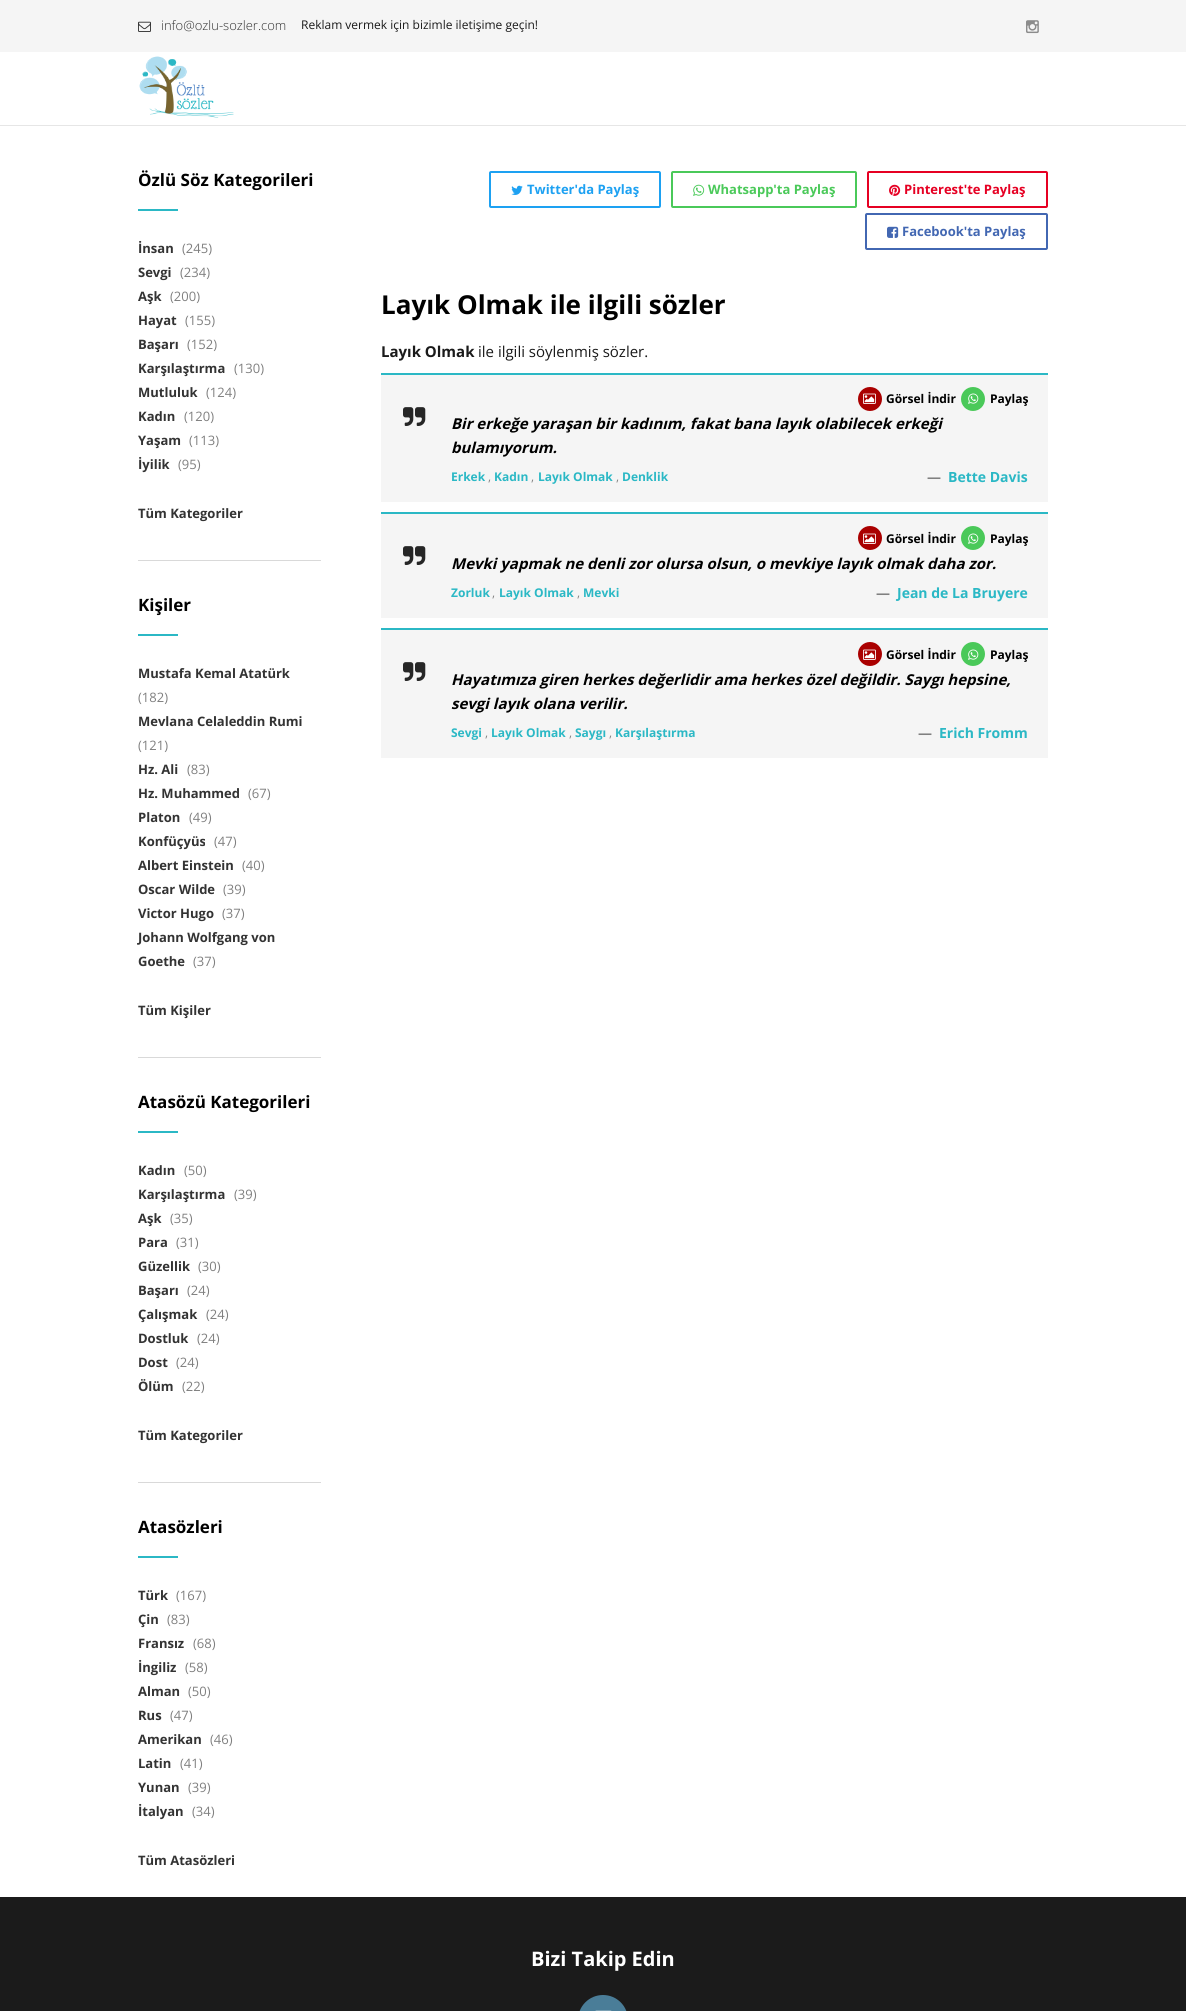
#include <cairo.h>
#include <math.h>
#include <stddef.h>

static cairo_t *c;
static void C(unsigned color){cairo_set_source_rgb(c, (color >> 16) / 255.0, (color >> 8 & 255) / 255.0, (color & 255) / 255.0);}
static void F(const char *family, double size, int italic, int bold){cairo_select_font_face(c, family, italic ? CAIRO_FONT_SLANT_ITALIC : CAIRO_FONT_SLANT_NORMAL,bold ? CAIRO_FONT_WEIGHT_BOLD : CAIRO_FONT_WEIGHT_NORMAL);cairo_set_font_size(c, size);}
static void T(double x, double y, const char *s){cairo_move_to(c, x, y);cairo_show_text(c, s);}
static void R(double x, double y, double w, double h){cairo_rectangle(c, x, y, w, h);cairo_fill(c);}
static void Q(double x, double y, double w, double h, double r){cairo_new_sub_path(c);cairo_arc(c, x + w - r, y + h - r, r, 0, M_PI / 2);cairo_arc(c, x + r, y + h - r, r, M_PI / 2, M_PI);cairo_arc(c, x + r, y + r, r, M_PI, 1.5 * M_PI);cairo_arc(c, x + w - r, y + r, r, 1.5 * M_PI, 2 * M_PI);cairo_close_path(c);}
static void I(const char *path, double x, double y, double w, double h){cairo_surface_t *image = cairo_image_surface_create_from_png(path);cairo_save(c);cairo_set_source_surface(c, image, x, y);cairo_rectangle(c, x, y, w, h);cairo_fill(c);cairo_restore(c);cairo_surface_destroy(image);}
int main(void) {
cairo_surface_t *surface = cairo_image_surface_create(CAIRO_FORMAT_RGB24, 1186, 2011);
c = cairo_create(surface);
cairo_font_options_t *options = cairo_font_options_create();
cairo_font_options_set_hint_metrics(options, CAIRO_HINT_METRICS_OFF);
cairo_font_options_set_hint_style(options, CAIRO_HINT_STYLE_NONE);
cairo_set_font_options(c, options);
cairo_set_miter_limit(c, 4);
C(0xffffff);
cairo_paint(c);
C(0xe6e6e6);
R(0,125,1186,1);
C(0xf5f5f5);
R(0,0,1186,52);
I("1.png",138,21,13,11);
F("Open Sans Light",13,0,0);
C(0x333333);
T(161,30,"info@ozlu-sozler.com");
F("Open Sans",12,0,0);
C(0x1a1a1a);
T(301,29,"Reklam vermek için bizimle iletişime geçin!");
I("2.png",1026,20,13,14);
I("3.png",139,56,95,62);
F("Open Sans",17,0,1);
C(0x000000);
T(138,186,"Özlü Söz Kategorileri");
C(0x2bb8c5);
R(138,209,40,2);
F("Open Sans",13,0,1);
C(0x333333);
T(138,253,"İnsan");
F("Open Sans",13,0,0);
C(0x808080);
T(182,253,"(245)");
F("Open Sans",13,0,1);
C(0x333333);
T(138,277,"Sevgi");
F("Open Sans",13,0,0);
C(0x808080);
T(180,277,"(234)");
F("Open Sans",13,0,1);
C(0x333333);
T(138,301,"Aşk");
F("Open Sans",13,0,0);
C(0x808080);
T(170,301,"(200)");
F("Open Sans",13,0,1);
C(0x333333);
T(138,325,"Hayat");
F("Open Sans",13,0,0);
C(0x808080);
T(185,325,"(155)");
F("Open Sans",13,0,1);
C(0x333333);
T(138,349,"Başarı");
F("Open Sans",13,0,0);
C(0x808080);
T(187,349,"(152)");
F("Open Sans",13,0,1);
C(0x333333);
T(138,373,"Karşılaştırma");
F("Open Sans",13,0,0);
C(0x808080);
T(234,373,"(130)");
F("Open Sans",13,0,1);
C(0x333333);
T(138,397,"Mutluluk");
F("Open Sans",13,0,0);
C(0x808080);
T(206,397,"(124)");
F("Open Sans",13,0,1);
C(0x333333);
T(138,421,"Kadın");
F("Open Sans",13,0,0);
C(0x808080);
T(184,421,"(120)");
F("Open Sans",13,0,1);
C(0x333333);
T(138,445,"Yaşam");
F("Open Sans",13,0,0);
C(0x808080);
T(189,445,"(113)");
F("Open Sans",13,0,1);
C(0x333333);
T(138,469,"İyilik");
F("Open Sans",13,0,0);
C(0x808080);
T(178,469,"(95)");
F("Open Sans",13,0,1);
C(0x333333);
T(138,518,"Tüm Kategoriler");
C(0xd9d9d9);
R(138,560,183,1);
F("Open Sans",17,0,1);
C(0x000000);
T(138,611,"Kişiler");
C(0x2bb8c5);
R(138,634,40,2);
F("Open Sans",13,0,1);
C(0x333333);
T(138,678,"Mustafa Kemal Atatürk");
F("Open Sans",13,0,0);
C(0x808080);
T(138,702,"(182)");
F("Open Sans",13,0,1);
C(0x333333);
T(138,726,"Mevlana Celaleddin Rumi");
F("Open Sans",13,0,0);
C(0x808080);
T(138,750,"(121)");
F("Open Sans",13,0,1);
C(0x333333);
T(138,774,"Hz. Ali");
F("Open Sans",13,0,0);
C(0x808080);
T(187,774,"(83)");
F("Open Sans",13,0,1);
C(0x333333);
T(138,798,"Hz. Muhammed");
F("Open Sans",13,0,0);
C(0x808080);
T(248,798,"(67)");
F("Open Sans",13,0,1);
C(0x333333);
T(138,822,"Platon");
F("Open Sans",13,0,0);
C(0x808080);
T(189,822,"(49)");
F("Open Sans",13,0,1);
C(0x333333);
T(138,846,"Konfüçyüs");
F("Open Sans",13,0,0);
C(0x808080);
T(214,846,"(47)");
F("Open Sans",13,0,1);
C(0x333333);
T(138,870,"Albert Einstein");
F("Open Sans",13,0,0);
C(0x808080);
T(242,870,"(40)");
F("Open Sans",13,0,1);
C(0x333333);
T(138,894,"Oscar Wilde");
F("Open Sans",13,0,0);
C(0x808080);
T(223,894,"(39)");
F("Open Sans",13,0,1);
C(0x333333);
T(138,918,"Victor Hugo");
F("Open Sans",13,0,0);
C(0x808080);
T(222,918,"(37)");
F("Open Sans",13,0,1);
C(0x333333);
T(138,942,"Johann Wolfgang von");
T(138,966,"Goethe");
F("Open Sans",13,0,0);
C(0x808080);
T(193,966,"(37)");
F("Open Sans",13,0,1);
C(0x333333);
T(138,1015,"Tüm Kişiler");
C(0xd9d9d9);
R(138,1057,183,1);
F("Open Sans",17,0,1);
C(0x000000);
T(138,1108,"Atasözü Kategorileri");
C(0x2bb8c5);
R(138,1131,40,2);
F("Open Sans",13,0,1);
C(0x333333);
T(138,1175,"Kadın");
F("Open Sans",13,0,0);
C(0x808080);
T(184,1175,"(50)");
F("Open Sans",13,0,1);
C(0x333333);
T(138,1199,"Karşılaştırma");
F("Open Sans",13,0,0);
C(0x808080);
T(234,1199,"(39)");
F("Open Sans",13,0,1);
C(0x333333);
T(138,1223,"Aşk");
F("Open Sans",13,0,0);
C(0x808080);
T(170,1223,"(35)");
F("Open Sans",13,0,1);
C(0x333333);
T(138,1247,"Para");
F("Open Sans",13,0,0);
C(0x808080);
T(176,1247,"(31)");
F("Open Sans",13,0,1);
C(0x333333);
T(138,1271,"Güzellik");
F("Open Sans",13,0,0);
C(0x808080);
T(198,1271,"(30)");
F("Open Sans",13,0,1);
C(0x333333);
T(138,1295,"Başarı");
F("Open Sans",13,0,0);
C(0x808080);
T(187,1295,"(24)");
F("Open Sans",13,0,1);
C(0x333333);
T(138,1319,"Çalışmak");
F("Open Sans",13,0,0);
C(0x808080);
T(206,1319,"(24)");
F("Open Sans",13,0,1);
C(0x333333);
T(138,1343,"Dostluk");
F("Open Sans",13,0,0);
C(0x808080);
T(197,1343,"(24)");
F("Open Sans",13,0,1);
C(0x333333);
T(138,1367,"Dost");
F("Open Sans",13,0,0);
C(0x808080);
T(176,1367,"(24)");
F("Open Sans",13,0,1);
C(0x333333);
T(138,1391,"Ölüm");
F("Open Sans",13,0,0);
C(0x808080);
T(182,1391,"(22)");
F("Open Sans",13,0,1);
C(0x333333);
T(138,1440,"Tüm Kategoriler");
C(0xd9d9d9);
R(138,1482,183,1);
F("Open Sans",17,0,1);
C(0x000000);
T(138,1533,"Atasözleri");
C(0x2bb8c5);
R(138,1556,40,2);
F("Open Sans",13,0,1);
C(0x333333);
T(138,1600,"Türk");
F("Open Sans",13,0,0);
C(0x808080);
T(176,1600,"(167)");
F("Open Sans",13,0,1);
C(0x333333);
T(138,1624,"Çin");
F("Open Sans",13,0,0);
C(0x808080);
T(167,1624,"(83)");
F("Open Sans",13,0,1);
C(0x333333);
T(138,1648,"Fransız");
F("Open Sans",13,0,0);
C(0x808080);
T(193,1648,"(68)");
F("Open Sans",13,0,1);
C(0x333333);
T(138,1672,"İngiliz");
F("Open Sans",13,0,0);
C(0x808080);
T(185,1672,"(58)");
F("Open Sans",13,0,1);
C(0x333333);
T(138,1696,"Alman");
F("Open Sans",13,0,0);
C(0x808080);
T(188,1696,"(50)");
F("Open Sans",13,0,1);
C(0x333333);
T(138,1720,"Rus");
F("Open Sans",13,0,0);
C(0x808080);
T(170,1720,"(47)");
F("Open Sans",13,0,1);
C(0x333333);
T(138,1744,"Amerikan");
F("Open Sans",13,0,0);
C(0x808080);
T(210,1744,"(46)");
F("Open Sans",13,0,1);
C(0x333333);
T(138,1768,"Latin");
F("Open Sans",13,0,0);
C(0x808080);
T(180,1768,"(41)");
F("Open Sans",13,0,1);
C(0x333333);
T(138,1792,"Yunan");
F("Open Sans",13,0,0);
C(0x808080);
T(188,1792,"(39)");
F("Open Sans",13,0,1);
C(0x333333);
T(138,1816,"İtalyan");
F("Open Sans",13,0,0);
C(0x808080);
T(192,1816,"(34)");
F("Open Sans",13,0,1);
C(0x333333);
T(138,1865,"Tüm Atasözleri");
Q(490,172,170,35,1);
C(0x1da1f2);
cairo_stroke(c);
I("4.png",511,185,12,10);
T(527,194,"Twitter'da Paylaş");
Q(672,172,184,35,1);
C(0x4ac959);
cairo_stroke(c);
I("5.png",693,184,12,12);
T(708,194,"Whatsapp'ta Paylaş");
Q(868,172,179,35,1);
C(0xe60023);
cairo_stroke(c);
I("6.png",889,184,12,12);
T(904,194,"Pinterest'te Paylaş");
Q(866,214,181,35,1);
C(0x4267b2);
cairo_stroke(c);
I("7.png",887,226,12,12);
T(902,236,"Facebook'ta Paylaş");
F("Open Sans",26,0,1);
C(0x000000);
T(381,314,"Layık Olmak ile ilgili sözler");
F("Open Sans",15,0,1);
C(0x1a1a1a);
T(381,357,"Layık Olmak");
F("Open Sans",15,0,0);
T(478,357,"ile ilgili söylenmiş sözler.");
C(0xf5f5f5);
R(381,375,667,127);
C(0x2bb8c5);
R(381,373,667,2);
C(0xaa0000);
cairo_new_path(c);
cairo_arc(c,870,399,12,0,2 * M_PI);
cairo_fill(c);
I("8.png",863,393,13,11);
F("Open Sans",12,0,1);
C(0x000000);
T(886,403,"Görsel İndir");
C(0x4ac959);
cairo_new_path(c);
cairo_arc(c,973,399,12,0,2 * M_PI);
cairo_fill(c);
I("9.png",968,393,11,11);
C(0x000000);
T(990,403,"Paylaş");
I("10.png",403,407,23,19);
F("Open Sans",15,1,1);
T(451,429,"Bir erkeğe yaraşan bir kadınım, fakat bana layık olabilecek erkeği");
T(451,453,"bulamıyorum.");
F("Open Sans",12,0,1);
C(0x2bb8c5);
T(451,481,"Erkek");
F("Open Sans",12,0,0);
C(0x808080);
T(488,481,",");
F("Open Sans",12,0,1);
C(0x2bb8c5);
T(494,481,"Kadın");
F("Open Sans",12,0,0);
C(0x808080);
T(531,481,",");
F("Open Sans",12,0,1);
C(0x2bb8c5);
T(538,481,"Layık Olmak");
F("Open Sans",12,0,0);
C(0x808080);
T(616,481,",");
F("Open Sans",12,0,1);
C(0x2bb8c5);
T(622,481,"Denklik");
F("Open Sans",14,0,1);
C(0x808080);
T(927,482,"—");
C(0x2bb8c5);
T(948,482,"Bette Davis");
C(0xf5f5f5);
R(381,514,667,104);
C(0x2bb8c5);
R(381,512,667,2);
C(0xaa0000);
cairo_new_path(c);
cairo_arc(c,870,538,12,0,2 * M_PI);
cairo_fill(c);
I("8.png",863,533,13,11);
F("Open Sans",12,0,1);
C(0x000000);
T(886,543,"Görsel İndir");
C(0x4ac959);
cairo_new_path(c);
cairo_arc(c,973,538,12,0,2 * M_PI);
cairo_fill(c);
I("9.png",968,533,11,11);
C(0x000000);
T(990,543,"Paylaş");
I("10.png",403,546,23,19);
F("Open Sans",15,1,1);
T(451,569,"Mevki yapmak ne denli zor olursa olsun, o mevkiye layık olmak daha zor.");
F("Open Sans",12,0,1);
C(0x2bb8c5);
T(451,597,"Zorluk");
F("Open Sans",12,0,0);
C(0x808080);
T(492,597,",");
F("Open Sans",12,0,1);
C(0x2bb8c5);
T(499,597,"Layık Olmak");
F("Open Sans",12,0,0);
C(0x808080);
T(577,597,",");
F("Open Sans",12,0,1);
C(0x2bb8c5);
T(583,597,"Mevki");
F("Open Sans",14,0,1);
C(0x808080);
T(876,598,"—");
C(0x2bb8c5);
T(897,598,"Jean de La Bruyere");
C(0xf5f5f5);
R(381,630,667,128);
C(0x2bb8c5);
R(381,628,667,2);
C(0xaa0000);
cairo_new_path(c);
cairo_arc(c,870,654,12,0,2 * M_PI);
cairo_fill(c);
I("8.png",863,649,13,11);
F("Open Sans",12,0,1);
C(0x000000);
T(886,659,"Görsel İndir");
C(0x4ac959);
cairo_new_path(c);
cairo_arc(c,973,654,12,0,2 * M_PI);
cairo_fill(c);
I("9.png",968,649,11,11);
C(0x000000);
T(990,659,"Paylaş");
I("10.png",403,662,23,19);
F("Open Sans",15,1,1);
T(451,685,"Hayatımıza giren herkes değerlidir ama herkes özel değildir. Saygı hepsine,");
T(451,709,"sevgi layık olana verilir.");
F("Open Sans",12,0,1);
C(0x2bb8c5);
T(451,737,"Sevgi");
F("Open Sans",12,0,0);
C(0x808080);
T(485,737,",");
F("Open Sans",12,0,1);
C(0x2bb8c5);
T(491,737,"Layık Olmak");
F("Open Sans",12,0,0);
C(0x808080);
T(569,737,",");
F("Open Sans",12,0,1);
C(0x2bb8c5);
T(575,737,"Saygı");
F("Open Sans",12,0,0);
C(0x808080);
T(609,737,",");
F("Open Sans",12,0,1);
C(0x2bb8c5);
T(615,737,"Karşılaştırma");
F("Open Sans",14,0,1);
C(0x808080);
T(918,738,"—");
C(0x2bb8c5);
T(939,738,"Erich Fromm");
C(0x1b1b1b);
R(0,1897,1186,114);
F("Open Sans",20,0,1);
C(0xffffff);
T(531,1966,"Bizi Takip Edin");
C(0x4a7d98);
Q(578,1995,50,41,25);
cairo_fill(c);
I("11.png",595,2010,17,1);
cairo_surface_write_to_png(surface, "o.png");
cairo_font_options_destroy(options);
cairo_destroy(c);
cairo_surface_destroy(surface);
return 0;
}
